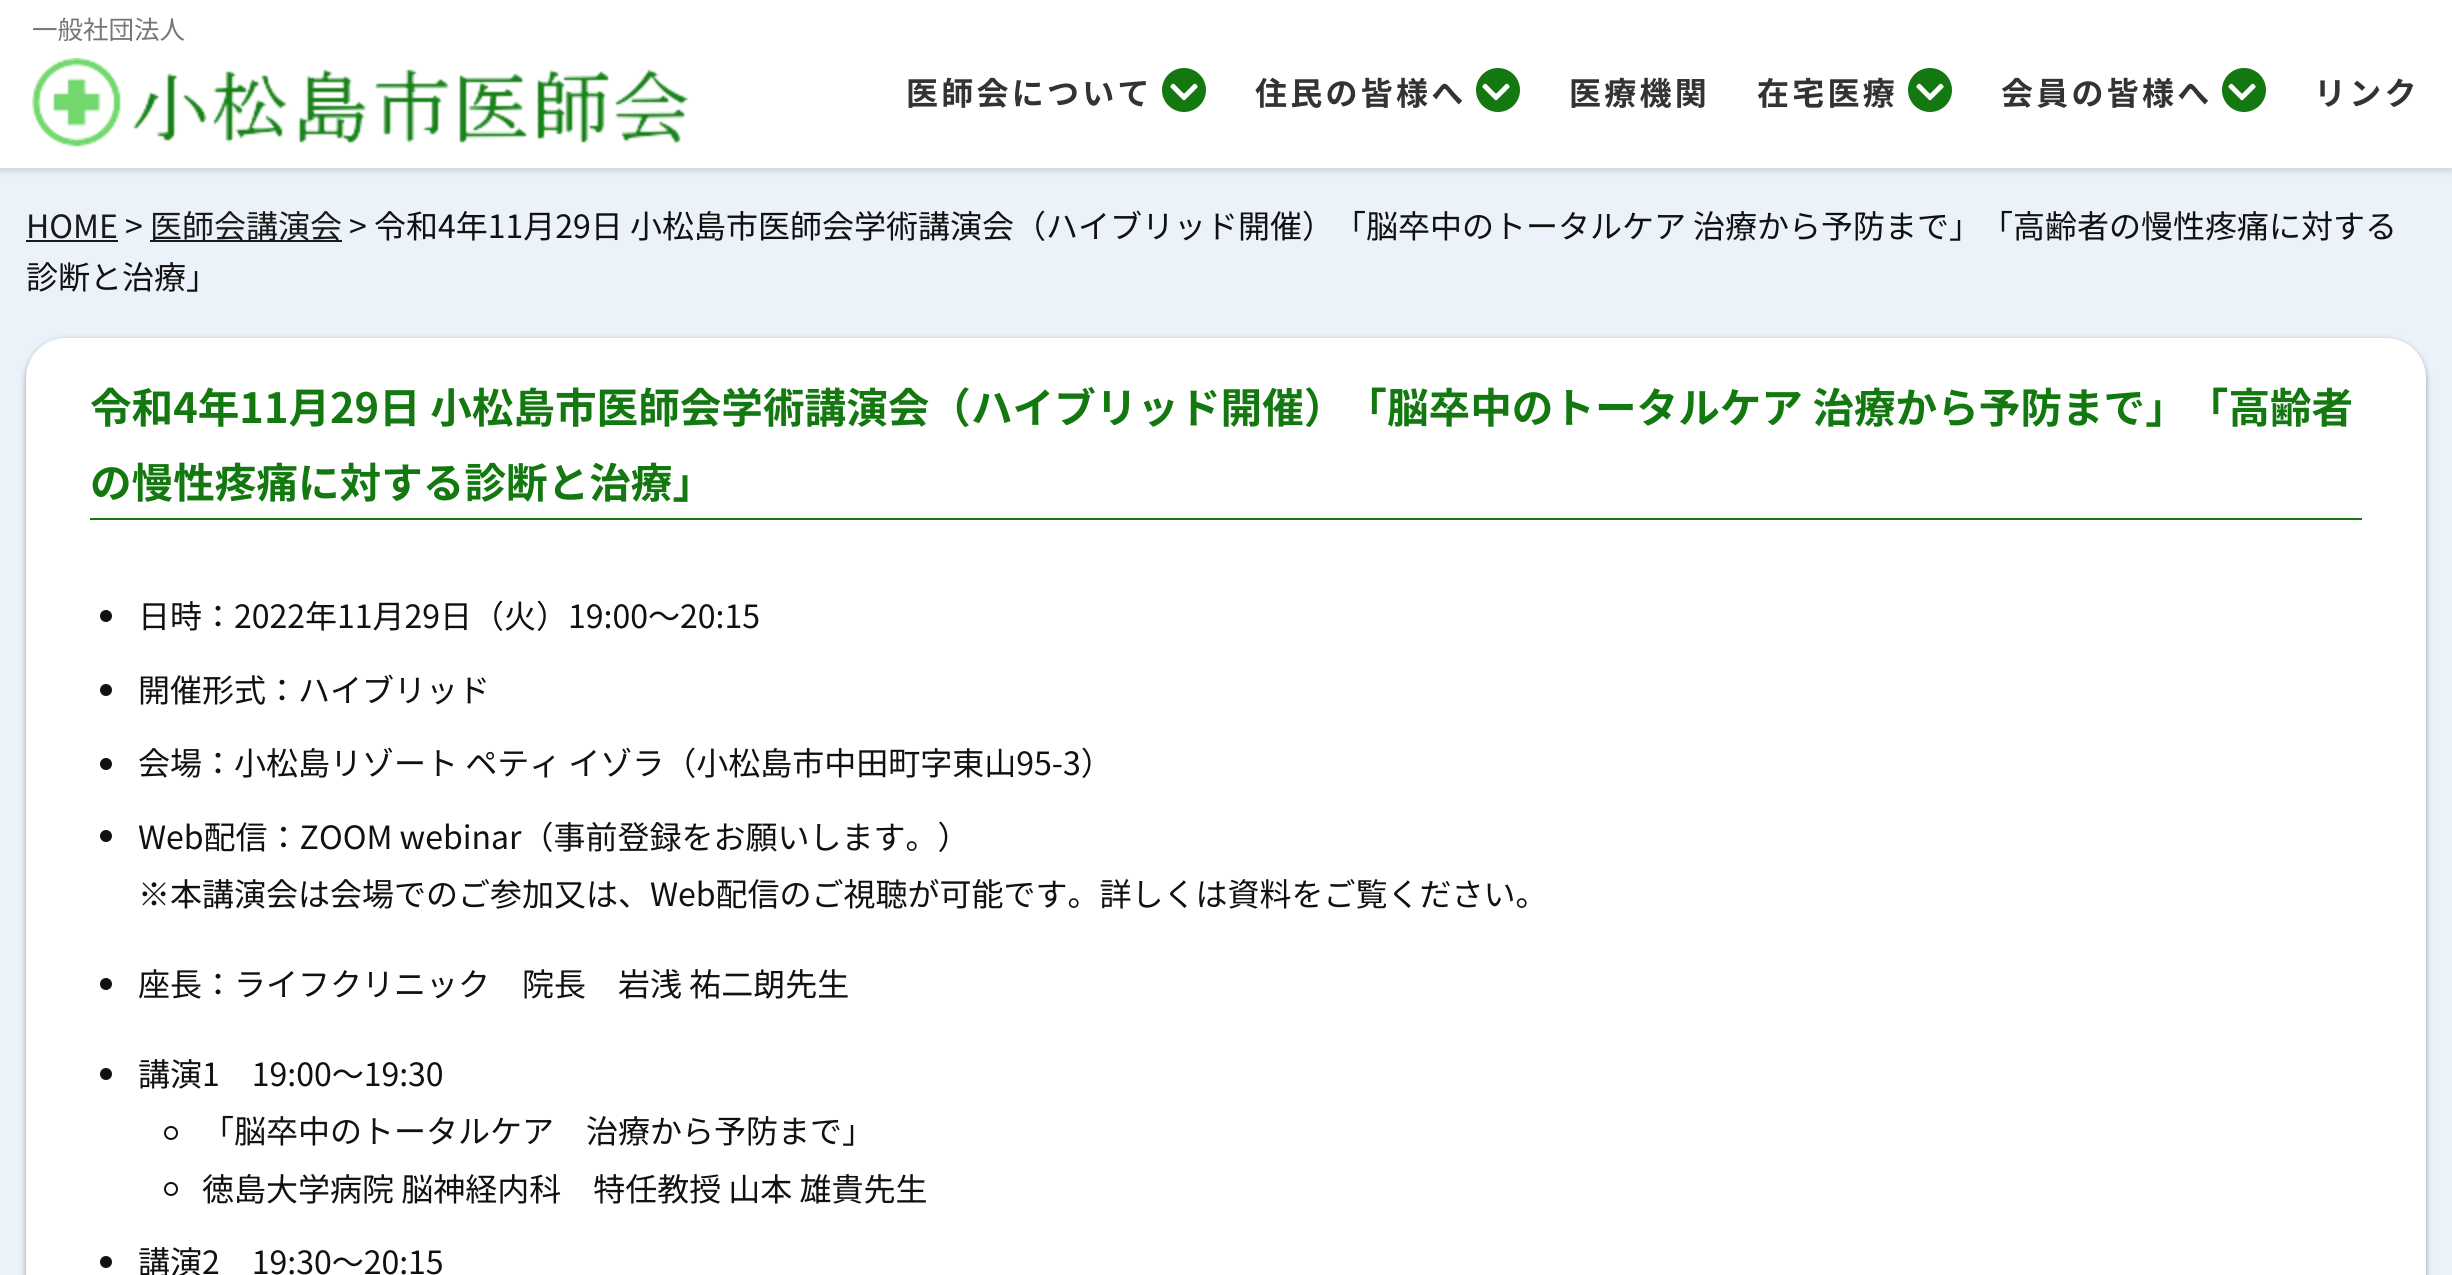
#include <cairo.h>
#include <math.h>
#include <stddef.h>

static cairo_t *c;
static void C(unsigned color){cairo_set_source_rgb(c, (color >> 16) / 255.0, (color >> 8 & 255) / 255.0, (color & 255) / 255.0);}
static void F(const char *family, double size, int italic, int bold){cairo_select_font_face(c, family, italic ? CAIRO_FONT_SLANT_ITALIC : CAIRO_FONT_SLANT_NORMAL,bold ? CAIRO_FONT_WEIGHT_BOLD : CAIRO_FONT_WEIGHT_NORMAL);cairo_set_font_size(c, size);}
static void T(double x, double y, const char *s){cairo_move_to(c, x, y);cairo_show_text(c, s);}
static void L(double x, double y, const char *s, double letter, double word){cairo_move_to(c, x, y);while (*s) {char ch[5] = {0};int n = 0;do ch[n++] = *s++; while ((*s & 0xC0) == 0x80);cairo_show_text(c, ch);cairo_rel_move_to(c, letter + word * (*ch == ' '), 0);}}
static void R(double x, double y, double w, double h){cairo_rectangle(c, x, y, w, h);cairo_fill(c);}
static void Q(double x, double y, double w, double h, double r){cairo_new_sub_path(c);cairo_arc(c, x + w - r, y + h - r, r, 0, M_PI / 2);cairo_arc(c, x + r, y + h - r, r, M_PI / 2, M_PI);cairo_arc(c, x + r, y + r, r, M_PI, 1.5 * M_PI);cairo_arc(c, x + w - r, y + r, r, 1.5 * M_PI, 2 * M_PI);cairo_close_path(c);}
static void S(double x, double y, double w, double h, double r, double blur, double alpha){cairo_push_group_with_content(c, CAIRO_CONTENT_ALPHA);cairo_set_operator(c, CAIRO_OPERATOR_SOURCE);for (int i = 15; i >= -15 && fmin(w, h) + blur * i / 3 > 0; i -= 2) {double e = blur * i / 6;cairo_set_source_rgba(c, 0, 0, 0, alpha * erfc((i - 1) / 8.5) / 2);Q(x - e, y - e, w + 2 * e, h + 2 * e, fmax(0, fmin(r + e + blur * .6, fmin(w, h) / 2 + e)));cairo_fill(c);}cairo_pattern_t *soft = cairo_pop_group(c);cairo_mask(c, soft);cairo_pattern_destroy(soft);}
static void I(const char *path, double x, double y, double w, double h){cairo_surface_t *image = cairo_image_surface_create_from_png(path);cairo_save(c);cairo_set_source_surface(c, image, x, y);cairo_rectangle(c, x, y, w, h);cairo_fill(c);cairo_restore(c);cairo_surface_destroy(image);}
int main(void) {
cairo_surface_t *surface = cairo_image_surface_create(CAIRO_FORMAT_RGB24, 2452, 1275);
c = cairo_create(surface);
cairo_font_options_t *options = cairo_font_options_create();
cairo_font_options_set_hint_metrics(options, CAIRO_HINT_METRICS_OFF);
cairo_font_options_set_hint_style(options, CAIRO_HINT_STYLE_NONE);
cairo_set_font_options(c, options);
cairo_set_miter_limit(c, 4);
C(0xebf2fa);
cairo_paint(c);
C(0x000000);
S(0,2,2452,168,0,4,.16);
C(0xffffff);
R(0,0,2452,168);
F("Noto Sans JP",25.5,0,0);
C(0x767676);
T(32,39,"一般社団法人");
I("1.png",32,58,657,89);
F("Noto Sans JP",32,0,1);
C(0x333333);
L(906,105,"医師会について",3.25,0);
C(0x137810);
cairo_new_path(c);
cairo_arc(c,1184,90,22,0,2 * M_PI);
cairo_fill(c);
I("2.png",1170,83,28,18);
C(0x333333);
L(1255,105,"住民の皆様へ",3.25,0);
C(0x137810);
cairo_new_path(c);
cairo_arc(c,1498,90,22,0,2 * M_PI);
cairo_fill(c);
I("2.png",1482,83,28,18);
C(0x333333);
L(1569,105,"医療機関",3.25,0);
L(1757,105,"在宅医療",3.25,0);
C(0x137810);
cairo_new_path(c);
cairo_arc(c,1930,90,22,0,2 * M_PI);
cairo_fill(c);
I("2.png",1916,83,28,18);
C(0x333333);
L(2001,105,"会員の皆様へ",3.25,0);
C(0x137810);
cairo_new_path(c);
cairo_arc(c,2244,90,22,0,2 * M_PI);
cairo_fill(c);
I("2.png",2228,83,28,18);
C(0x333333);
L(2314,105,"リンク",3.25,0);
F("Noto Sans JP",32,0,0);
C(0x1a1a1a);
T(26,238,"HOME");
R(26,240,92,2);
C(0x111111);
T(125,238,">");
C(0x1a1a1a);
R(150,240,192,2);
T(150,238,"医師会講演会");
C(0x111111);
T(349,238,"> 令和4年11月29日 小松島市医師会学術講演会（ハイブリッド開催）「脳卒中のトータルケア 治療から予防まで」「高齢者の慢性疼痛に対する");
T(26,289,"診断と治療」");
C(0x3c4043);
S(24,338,2404,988,42,3,.15);
S(26,340,2400,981,40,2,.3);
C(0xffffff);
Q(26,338,2400,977,40);
cairo_fill(c);
C(0x137810);
R(90,518,2272,2);
F("Noto Sans JP",41.6,0,1);
T(90,423,"令和4年11月29日 小松島市医師会学術講演会（ハイブリッド開催）「脳卒中のトータルケア 治療から予防まで」「高齢者");
T(90,498,"の慢性疼痛に対する診断と治療」");
C(0x111111);
cairo_new_path(c);
cairo_arc(c,106,616,6,0,2 * M_PI);
cairo_fill(c);
F("Noto Sans JP",32,0,0);
T(138,628,"日時：2022年11月29日（火）19:00～20:15");
cairo_new_path(c);
cairo_arc(c,106,690,6,0,2 * M_PI);
cairo_fill(c);
T(138,702,"開催形式：ハイブリッド");
cairo_new_path(c);
cairo_arc(c,106,764,6,0,2 * M_PI);
cairo_fill(c);
T(138,775,"会場：小松島リゾート ペティ イゾラ（小松島市中田町字東山95-3）");
cairo_new_path(c);
cairo_arc(c,106,836,6,0,2 * M_PI);
cairo_fill(c);
T(138,849,"Web配信：ZOOM webinar（事前登録をお願いします。）");
T(138,906,"※本講演会は会場でのご参加又は、Web配信のご視聴が可能です。詳しくは資料をご覧ください。");
cairo_new_path(c);
cairo_arc(c,106,984,6,0,2 * M_PI);
cairo_fill(c);
T(138,996,"座長：ライフクリニック　院長　岩浅 祐二朗先生");
cairo_new_path(c);
cairo_arc(c,106,1074,6,0,2 * M_PI);
cairo_fill(c);
T(138,1086,"講演1　19:00～19:30");
cairo_new_path(c);
cairo_arc(c,171,1133,6,0,2 * M_PI);
cairo_stroke(c);
T(202,1143,"「脳卒中のトータルケア　治療から予防まで」");
cairo_new_path(c);
cairo_arc(c,171,1189,6,0,2 * M_PI);
cairo_stroke(c);
T(202,1201,"徳島大学病院 脳神経内科　特任教授 山本 雄貴先生");
cairo_new_path(c);
cairo_arc(c,106,1262,6,0,2 * M_PI);
cairo_fill(c);
T(138,1274,"講演2　19:30～20:15");
cairo_surface_write_to_png(surface, "o.png");
cairo_font_options_destroy(options);
cairo_destroy(c);
cairo_surface_destroy(surface);
return 0;
}
